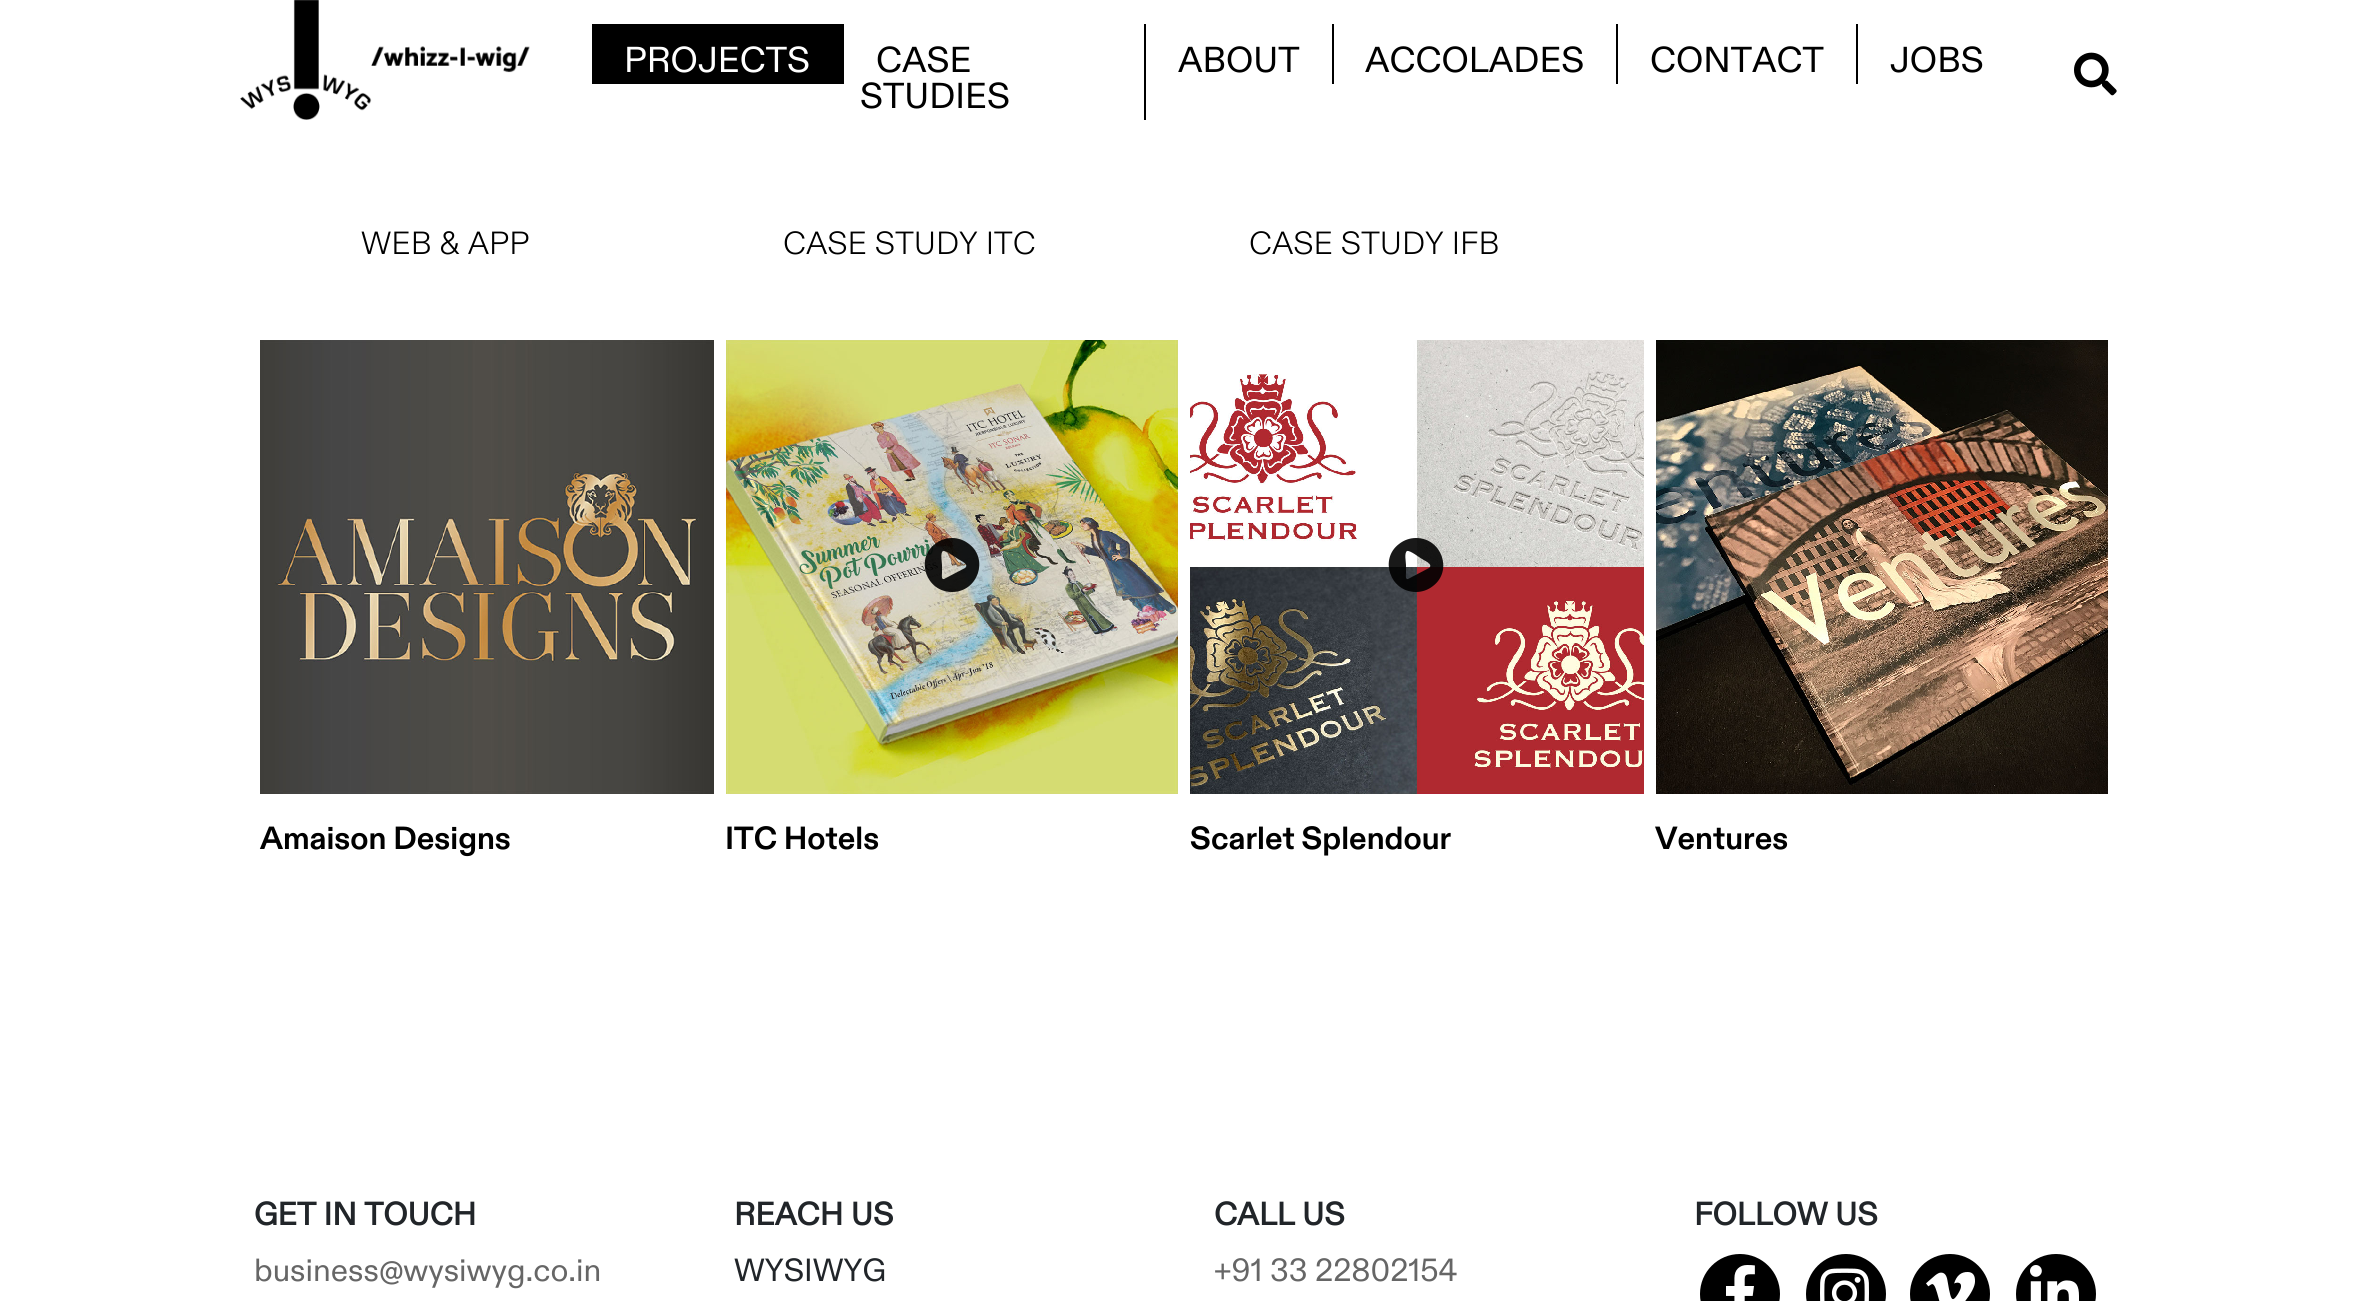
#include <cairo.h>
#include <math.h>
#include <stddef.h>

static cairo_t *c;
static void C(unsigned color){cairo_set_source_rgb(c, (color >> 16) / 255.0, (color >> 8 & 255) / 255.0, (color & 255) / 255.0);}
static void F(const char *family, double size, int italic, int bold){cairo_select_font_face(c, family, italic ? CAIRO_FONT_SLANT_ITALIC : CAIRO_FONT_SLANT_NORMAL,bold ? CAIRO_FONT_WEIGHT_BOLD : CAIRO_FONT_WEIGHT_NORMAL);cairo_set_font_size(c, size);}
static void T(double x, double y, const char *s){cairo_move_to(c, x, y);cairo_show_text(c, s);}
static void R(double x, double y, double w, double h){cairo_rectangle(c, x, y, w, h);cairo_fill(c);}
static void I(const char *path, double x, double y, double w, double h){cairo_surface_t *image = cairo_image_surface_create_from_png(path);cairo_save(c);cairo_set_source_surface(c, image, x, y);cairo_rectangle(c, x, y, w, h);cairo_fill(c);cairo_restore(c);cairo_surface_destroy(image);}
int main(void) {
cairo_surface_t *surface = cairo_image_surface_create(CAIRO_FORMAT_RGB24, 2367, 1301);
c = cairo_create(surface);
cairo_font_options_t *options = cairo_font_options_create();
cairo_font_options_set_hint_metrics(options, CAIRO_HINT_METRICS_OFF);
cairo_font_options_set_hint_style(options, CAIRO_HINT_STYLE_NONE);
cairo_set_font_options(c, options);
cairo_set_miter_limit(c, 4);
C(0xffffff);
cairo_paint(c);
I("1.png",240,0,290,120);
C(0x000000);
R(592,24,252,60);
F("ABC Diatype",36,0,0);
C(0xffffff);
T(624,72,"PROJECTS");
C(0x000000);
R(1144,24,2,96);
T(876,72,"CASE");
T(860,108,"STUDIES");
R(1332,24,2,60);
T(1178,72,"ABOUT");
R(1616,24,2,60);
T(1365,72,"ACCOLADES");
R(1856,24,2,60);
T(1650,72,"CONTACT");
T(1890,72,"JOBS");
I("2.png",2074,52,43,44);
F("ABC Diatype Light",32,0,0);
T(361,254,"WEB & APP");
T(783,254,"CASE STUDY ITC");
T(1249,254,"CASE STUDY IFB");
I("3.png",260,340,454,454);
F("ABC Diatype",32,0,1);
T(260,849,"Amaison Designs");
I("4.png",726,340,452,454);
cairo_set_source_rgba(c,0,0,0,0.9);
cairo_new_path(c);
cairo_move_to(c,952,538);
cairo_curve_to(c,946,538,940,540,935,544);
cairo_curve_to(c,915,559,926,592,952,592);
cairo_curve_to(c,978,592,989,559,969,544);
cairo_curve_to(c,964,540,958,538,952,538);
cairo_close_path(c);
cairo_move_to(c,965,568);
cairo_line_to(c,944,579);
cairo_curve_to(c,941,580,942,574,942,573);
cairo_line_to(c,942,565);
cairo_curve_to(c,942,562,940,553,943,551);
cairo_curve_to(c,946,550,956,558,958,559);
cairo_curve_to(c,959,560,970,564,965,568);
cairo_close_path(c);
cairo_fill(c);
C(0x000000);
T(725,849,"ITC Hotels");
I("5.png",1190,340,454,454);
cairo_set_source_rgba(c,0,0,0,0.9);
cairo_new_path(c);
cairo_move_to(c,1416,538);
cairo_curve_to(c,1410,538,1404,540,1399,544);
cairo_curve_to(c,1379,559,1390,592,1416,592);
cairo_curve_to(c,1422,592,1428,590,1433,586);
cairo_curve_to(c,1453,571,1442,538,1416,538);
cairo_close_path(c);
cairo_move_to(c,1429,568);
cairo_line_to(c,1408,579);
cairo_curve_to(c,1405,580,1406,574,1406,573);
cairo_line_to(c,1406,565);
cairo_curve_to(c,1406,562,1404,553,1407,551);
cairo_curve_to(c,1410,550,1420,558,1422,559);
cairo_curve_to(c,1423,560,1434,564,1429,568);
cairo_close_path(c);
cairo_fill(c);
C(0x000000);
T(1190,849,"Scarlet Splendour");
I("6.png",1656,340,452,454);
T(1655,849,"Ventures");
F("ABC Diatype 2",32,0,1);
C(0x212529);
T(254,1225,"GET IN TOUCH");
F("ABC Diatype",32,0,0);
C(0x666666);
T(254,1281,"business@wysiwyg.co.in");
F("ABC Diatype 2",32,0,1);
C(0x212529);
T(734,1225,"REACH US");
F("ABC Diatype",32,0,0);
T(734,1281,"WYSIWYG");
F("ABC Diatype 2",32,0,1);
T(1214,1225,"CALL US");
F("ABC Diatype",32,0,0);
C(0x666666);
T(1214,1281,"+91 33 22802154");
F("ABC Diatype 2",32,0,1);
C(0x212529);
T(1694,1225,"FOLLOW US");
C(0x000000);
cairo_new_path(c);
cairo_arc(c,1740,1294,40,0,2 * M_PI);
cairo_fill(c);
I("7.png",1726,1265,29,36);
cairo_arc(c,1846,1294,40,0,2 * M_PI);
cairo_fill(c);
I("8.png",1820,1268,49,33);
cairo_arc(c,1950,1294,40,0,2 * M_PI);
cairo_fill(c);
I("9.png",1926,1272,49,29);
cairo_arc(c,2056,1294,40,0,2 * M_PI);
cairo_fill(c);
I("10.png",2030,1265,49,36);
cairo_surface_write_to_png(surface, "o.png");
cairo_font_options_destroy(options);
cairo_destroy(c);
cairo_surface_destroy(surface);
return 0;
}
